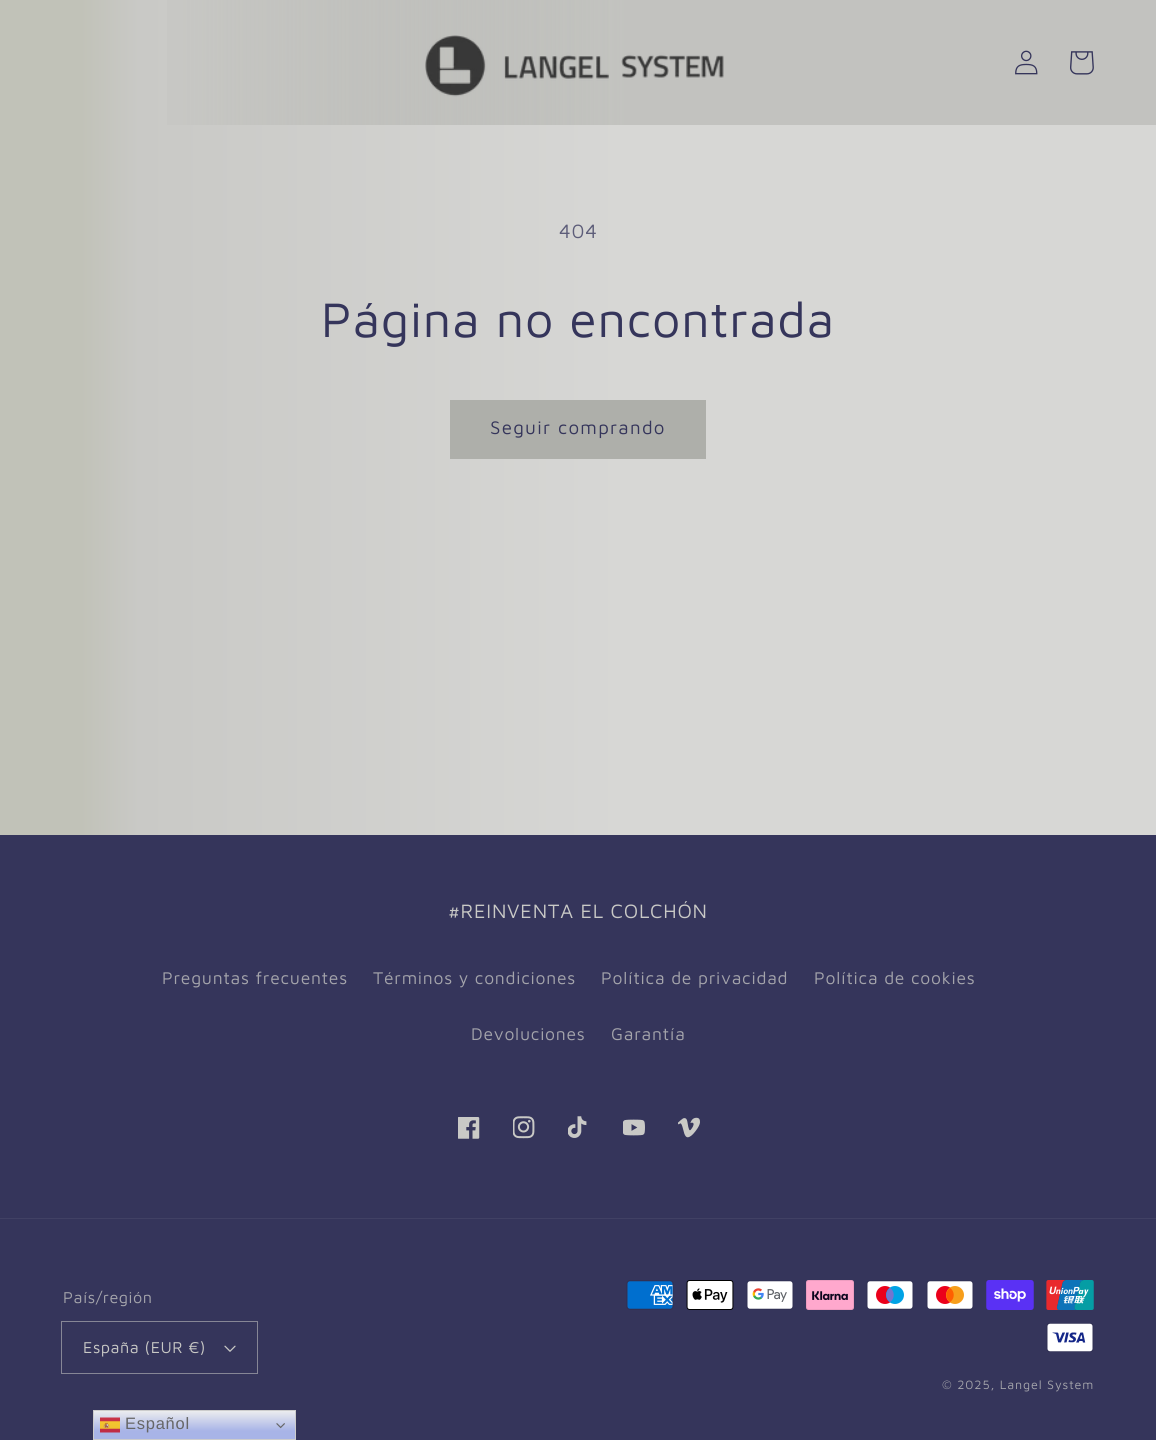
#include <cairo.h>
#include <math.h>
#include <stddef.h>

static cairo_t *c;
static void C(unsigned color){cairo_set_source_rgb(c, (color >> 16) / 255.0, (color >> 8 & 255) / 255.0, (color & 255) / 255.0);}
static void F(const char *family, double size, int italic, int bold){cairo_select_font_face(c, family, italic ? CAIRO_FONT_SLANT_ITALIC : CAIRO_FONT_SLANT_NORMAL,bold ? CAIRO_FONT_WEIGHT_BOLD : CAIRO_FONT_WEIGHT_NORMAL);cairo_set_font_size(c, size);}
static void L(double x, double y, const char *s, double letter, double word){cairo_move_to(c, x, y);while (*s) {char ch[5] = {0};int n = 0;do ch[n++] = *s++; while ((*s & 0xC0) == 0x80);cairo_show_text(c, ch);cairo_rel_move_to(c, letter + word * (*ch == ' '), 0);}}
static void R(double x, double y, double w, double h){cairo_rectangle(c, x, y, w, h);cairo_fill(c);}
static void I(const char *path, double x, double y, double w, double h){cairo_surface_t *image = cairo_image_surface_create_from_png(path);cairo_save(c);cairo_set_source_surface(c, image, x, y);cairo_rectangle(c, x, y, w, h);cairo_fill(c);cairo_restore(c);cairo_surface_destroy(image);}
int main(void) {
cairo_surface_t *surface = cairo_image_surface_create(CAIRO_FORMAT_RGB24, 1156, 1440);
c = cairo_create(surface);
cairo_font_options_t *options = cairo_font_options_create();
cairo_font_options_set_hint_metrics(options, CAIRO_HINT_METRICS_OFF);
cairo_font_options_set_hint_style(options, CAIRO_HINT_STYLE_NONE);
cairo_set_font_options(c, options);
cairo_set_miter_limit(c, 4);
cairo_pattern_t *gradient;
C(0xffffff);
cairo_paint(c);
gradient = cairo_pattern_create_linear(0,720,1156,720);
cairo_pattern_add_color_stop_rgba(gradient,.07,0.757,0.761,0.722,1);
cairo_pattern_add_color_stop_rgba(gradient,.12,0.788,0.788,0.776,1);
cairo_pattern_add_color_stop_rgba(gradient,.54,0.843,0.843,0.835,1);
cairo_pattern_add_color_stop_rgba(gradient,.97,0.843,0.843,0.835,1);
cairo_set_source(c,gradient);
cairo_pattern_destroy(gradient);
R(0,0,1156,835);
gradient = cairo_pattern_create_linear(0,720,1156,720);
cairo_pattern_add_color_stop_rgba(gradient,.07,0.757,0.761,0.722,1);
cairo_pattern_add_color_stop_rgba(gradient,.12,0.788,0.788,0.776,1);
cairo_pattern_add_color_stop_rgba(gradient,.54,0.682,0.686,0.667,.5);
cairo_pattern_add_color_stop_rgba(gradient,.97,0.682,0.686,0.667,.5);
cairo_set_source(c,gradient);
cairo_pattern_destroy(gradient);
R(167,0,989,125);
I("1.png",425,35,299,62);
I("2.png",1015,50,23,25);
I("3.png",1070,51,24,24);
F("Maven Pro",20,0,0);
C(0x5d5d79);
L(559,238,"404",.75,0);
F("Maven Pro",50,0,0);
C(0x35355b);
L(321,337,"Página no encontrada",.75,0);
cairo_rectangle(c,450.5,400.5,255,58);
C(0xaeafaa);
cairo_set_line_width(c,1);
cairo_stroke(c);
R(451,401,254,57);
F("Maven Pro",18.75,0,0);
C(0x35355b);
L(490,434,"Seguir comprando",1.25,0);
R(0,835,1156,605);
F("Maven Pro",20,0,0);
C(0xc9c9c6);
L(448,918,"#REINVENTA EL COLCHÓN",.75,0);
F("Maven Pro",17.5,0,0);
C(0xa4a4ab);
L(162,984,"Preguntas frecuentes",.75,0);
L(373,984,"Términos y condiciones",.75,0);
L(601,984,"Política de privacidad",.75,0);
L(814,984,"Política de cookies",.75,0);
L(471,1040,"Devoluciones",.75,0);
L(611,1040,"Garantía",.75,0);
I("4.png",458,1117,22,22);
I("5.png",513,1116,22,23);
I("6.png",568,1116,19,22);
I("7.png",623,1119,22,17);
I("8.png",678,1117,22,21);
C(0x414164);
R(0,1218,1156,1);
F("Maven Pro",16.25,0,0);
C(0xa4a4ab);
L(63,1303,"País/región",.5,0);
cairo_rectangle(c,61.5,1321.5,196,52);
C(0x868696);
cairo_stroke(c);
C(0xc9c9c6);
L(83,1353,"España (EUR €)",.5,0);
I("9.png",224,1345,12,7);
I("10.png",626,1280,48,30);
I("11.png",686,1280,48,30);
I("12.png",746,1280,48,30);
I("13.png",806,1280,48,30);
I("14.png",866,1280,48,30);
I("15.png",926,1280,48,30);
I("16.png",986,1280,48,30);
I("17.png",1046,1280,48,30);
I("18.png",1046,1323,48,29);
F("Maven Pro",12.5,0,0);
C(0xa4a4ab);
L(942,1389,"© 2025, Langel System",.9,0);
gradient = cairo_pattern_create_linear(194,1410,194,1440);
cairo_pattern_add_color_stop_rgba(gradient,0,0.937,0.937,0.937,1);
cairo_pattern_add_color_stop_rgba(gradient,.7,0.659,0.706,0.906,1);
cairo_set_source(c,gradient);
cairo_pattern_destroy(gradient);
R(94,1411,201,28);
cairo_rectangle(c,93.5,1410.5,202,29);
C(0xcccccc);
cairo_stroke(c);
I("19.png",100,1417,20,16);
F("Liberation Sans",16.5,0,0);
C(0x666666);
L(125,1429,"Español",.75,0);
I("20.png",276,1423,9,6);
cairo_surface_write_to_png(surface, "o.png");
cairo_font_options_destroy(options);
cairo_destroy(c);
cairo_surface_destroy(surface);
return 0;
}
